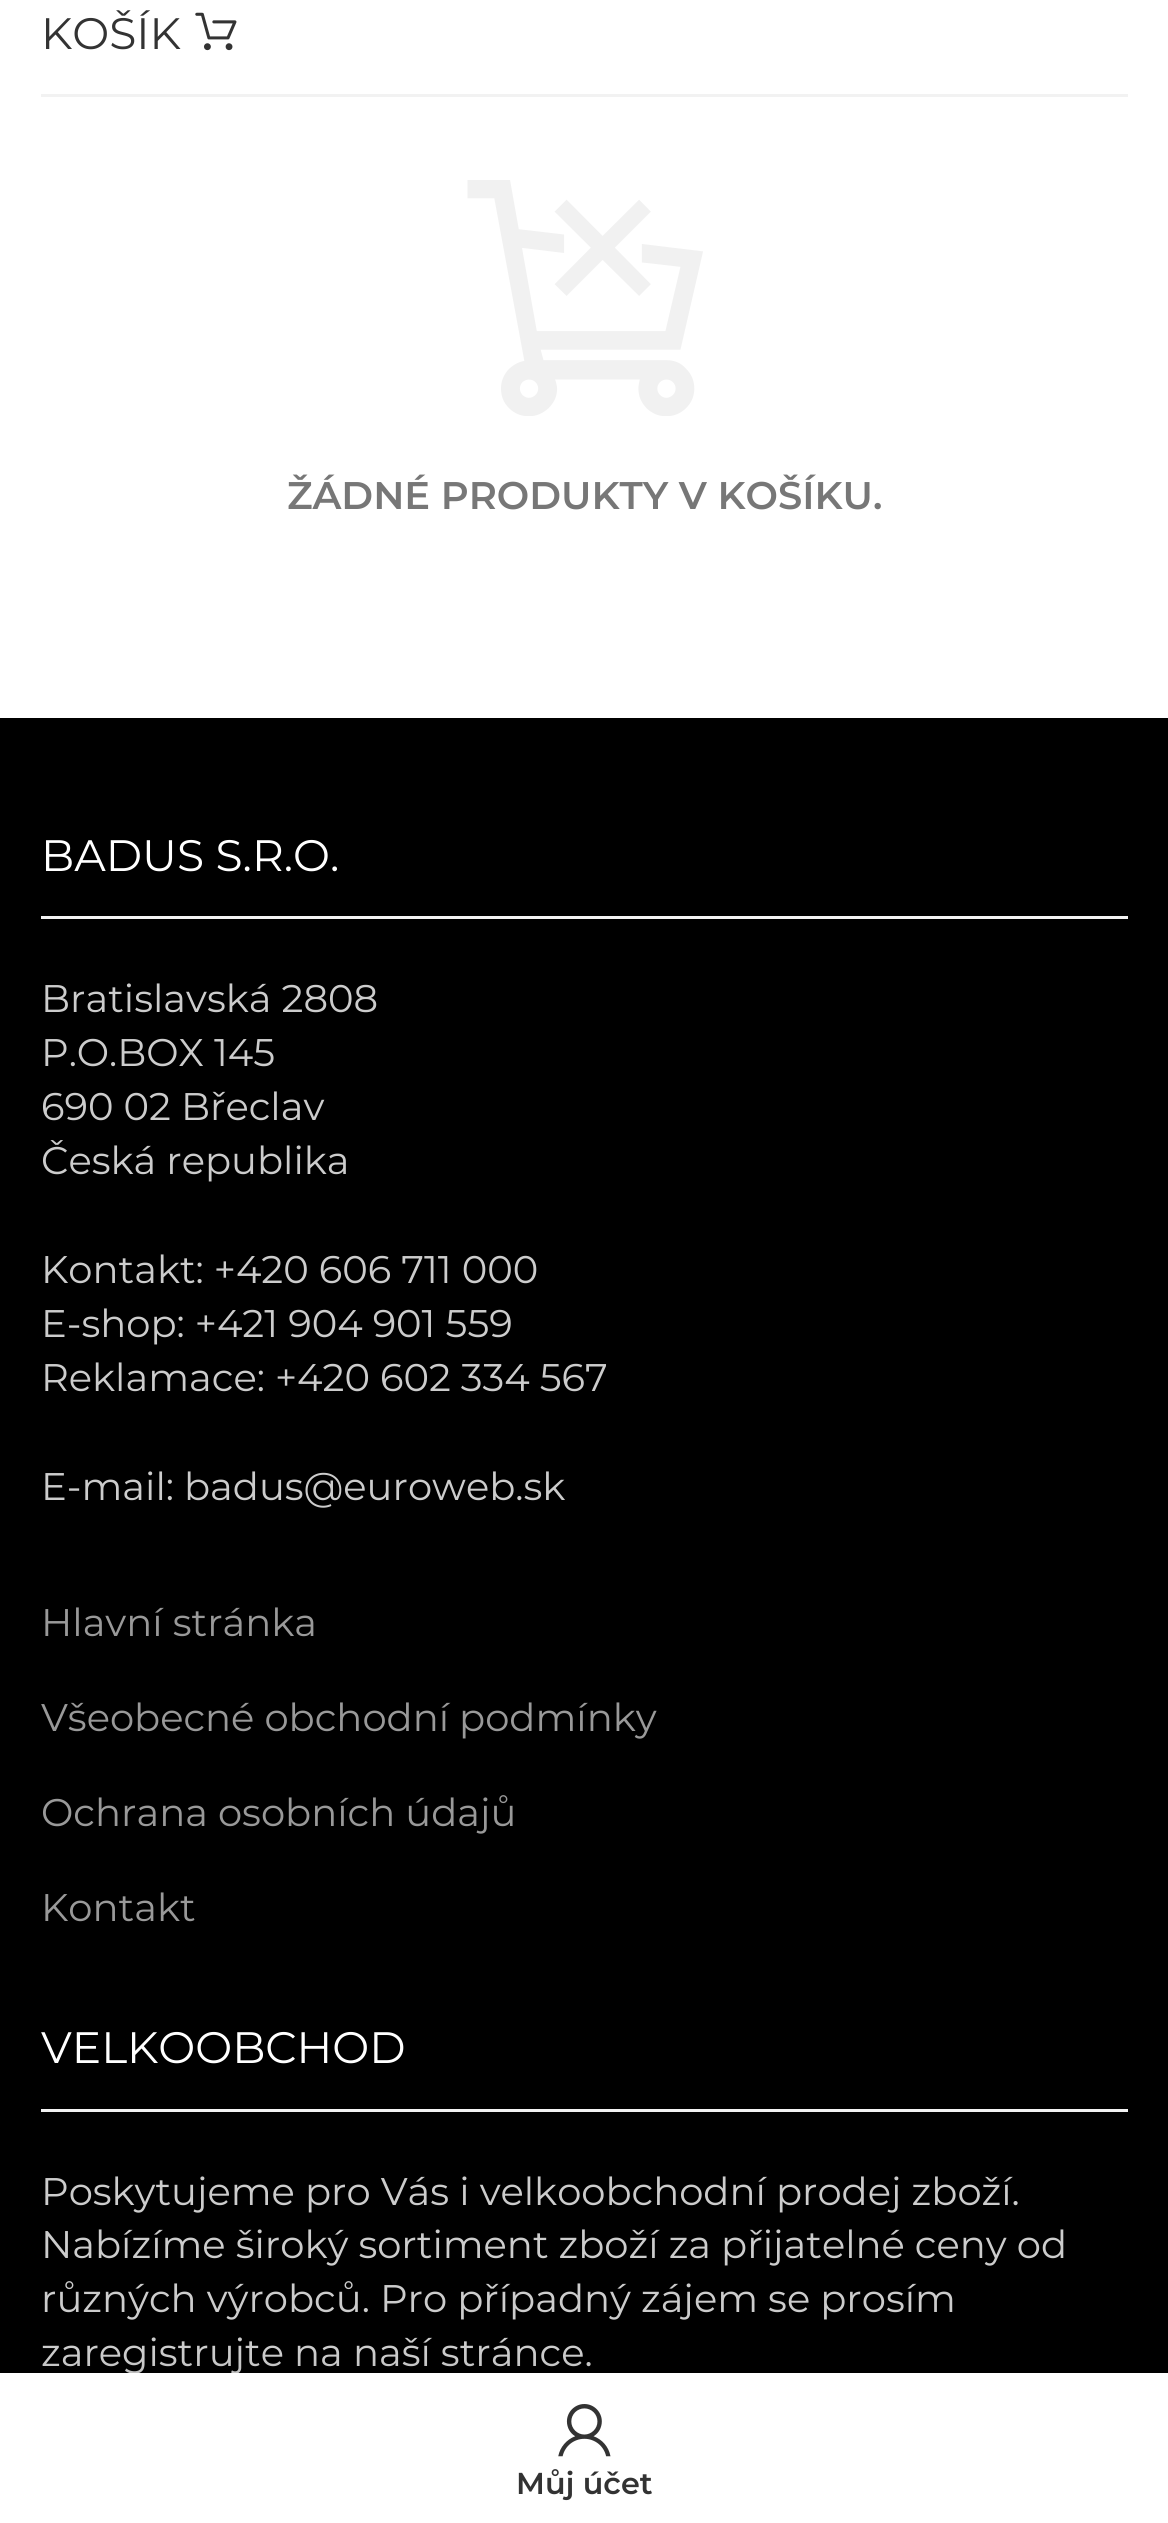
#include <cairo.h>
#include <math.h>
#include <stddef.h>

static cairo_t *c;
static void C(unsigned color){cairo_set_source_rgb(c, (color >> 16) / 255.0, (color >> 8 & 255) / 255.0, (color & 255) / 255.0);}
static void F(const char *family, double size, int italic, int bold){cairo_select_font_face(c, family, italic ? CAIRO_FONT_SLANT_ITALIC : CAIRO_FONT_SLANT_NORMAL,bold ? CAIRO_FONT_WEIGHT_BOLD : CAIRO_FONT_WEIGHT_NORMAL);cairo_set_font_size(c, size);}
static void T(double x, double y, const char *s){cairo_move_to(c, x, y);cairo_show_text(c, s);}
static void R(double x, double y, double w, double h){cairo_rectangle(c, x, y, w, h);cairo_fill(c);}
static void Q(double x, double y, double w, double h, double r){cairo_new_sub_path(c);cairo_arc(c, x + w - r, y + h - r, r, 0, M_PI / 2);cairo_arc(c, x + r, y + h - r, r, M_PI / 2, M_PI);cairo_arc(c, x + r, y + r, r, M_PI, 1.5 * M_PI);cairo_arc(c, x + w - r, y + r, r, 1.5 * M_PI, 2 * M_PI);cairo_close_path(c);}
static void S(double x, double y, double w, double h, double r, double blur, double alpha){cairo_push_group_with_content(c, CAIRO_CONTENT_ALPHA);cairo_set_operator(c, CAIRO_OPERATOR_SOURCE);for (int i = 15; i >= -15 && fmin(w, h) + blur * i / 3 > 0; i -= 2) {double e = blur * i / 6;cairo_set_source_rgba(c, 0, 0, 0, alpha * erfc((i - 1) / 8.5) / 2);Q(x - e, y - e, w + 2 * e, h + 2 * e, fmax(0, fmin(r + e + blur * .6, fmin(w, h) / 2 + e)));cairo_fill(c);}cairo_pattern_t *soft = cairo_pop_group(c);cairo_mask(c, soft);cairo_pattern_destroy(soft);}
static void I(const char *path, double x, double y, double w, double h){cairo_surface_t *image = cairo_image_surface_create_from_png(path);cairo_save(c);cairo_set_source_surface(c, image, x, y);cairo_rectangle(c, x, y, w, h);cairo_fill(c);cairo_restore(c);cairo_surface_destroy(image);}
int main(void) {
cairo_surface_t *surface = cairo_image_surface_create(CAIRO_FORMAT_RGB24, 1168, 2523);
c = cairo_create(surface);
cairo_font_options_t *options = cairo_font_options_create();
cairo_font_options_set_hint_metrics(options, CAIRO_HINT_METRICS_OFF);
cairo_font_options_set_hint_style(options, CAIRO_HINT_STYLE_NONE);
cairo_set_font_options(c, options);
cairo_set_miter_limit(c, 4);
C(0xffffff);
cairo_paint(c);
C(0xf2f2f2);
R(41,94,1087,3);
F("Montserrat",44,0,0);
C(0x333333);
T(41,49,"KOŠÍK");
I("1.png",195,12,42,39);
I("2.png",467,180,236,236);
F("Montserrat SemiBold",38.5,0,0);
C(0x777777);
T(287,509,"ŽÁDNÉ PRODUKTY V KOŠÍKU.");
C(0x000000);
R(0,718,1168,1655);
C(0xf2f2f2);
R(41,916,1087,3);
F("Montserrat",44,0,0);
C(0xffffff);
T(41,871,"BADUS S.R.O.");
F("Montserrat",38.5,0,0);
C(0xcccccc);
T(41,1012,"Bratislavská 2808");
T(41,1066,"P.O.BOX 145");
T(41,1120,"690 02 Břeclav");
T(41,1174,"Česká republika");
T(41,1283,"Kontakt: +420 606 711 000");
T(41,1337,"E-shop: +421 904 901 559");
T(41,1391,"Reklamace: +420 602 334 567");
T(41,1500,"E-mail: badus@euroweb.sk");
C(0x999999);
T(41,1636,"Hlavní stránka");
T(41,1731,"Všeobecné obchodní podmínky");
T(41,1826,"Ochrana osobních údajů");
T(41,1921,"Kontakt");
C(0xf2f2f2);
R(41,2109,1087,3);
F("Montserrat",44,0,0);
C(0xffffff);
T(41,2063,"VELKOOBCHOD");
F("Montserrat",38.5,0,0);
C(0xcccccc);
T(41,2205,"Poskytujeme pro Vás i velkoobchodní prodej zboží.");
T(41,2258,"Nabízíme široký sortiment zboží za přijatelné ceny od");
T(41,2312,"různých výrobců. Pro případný zájem se prosím");
T(41,2366,"zaregistrujte na naší stránce.");
C(0x000000);
S(0,2373,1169,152,0,12.5,.12);
C(0xffffff);
R(0,2373,1168,150);
I("3.png",558,2404,53,53);
F("Montserrat SemiBold",30.25,0,0);
C(0x333333);
T(516,2494,"Můj účet");
cairo_surface_write_to_png(surface, "o.png");
cairo_font_options_destroy(options);
cairo_destroy(c);
cairo_surface_destroy(surface);
return 0;
}
